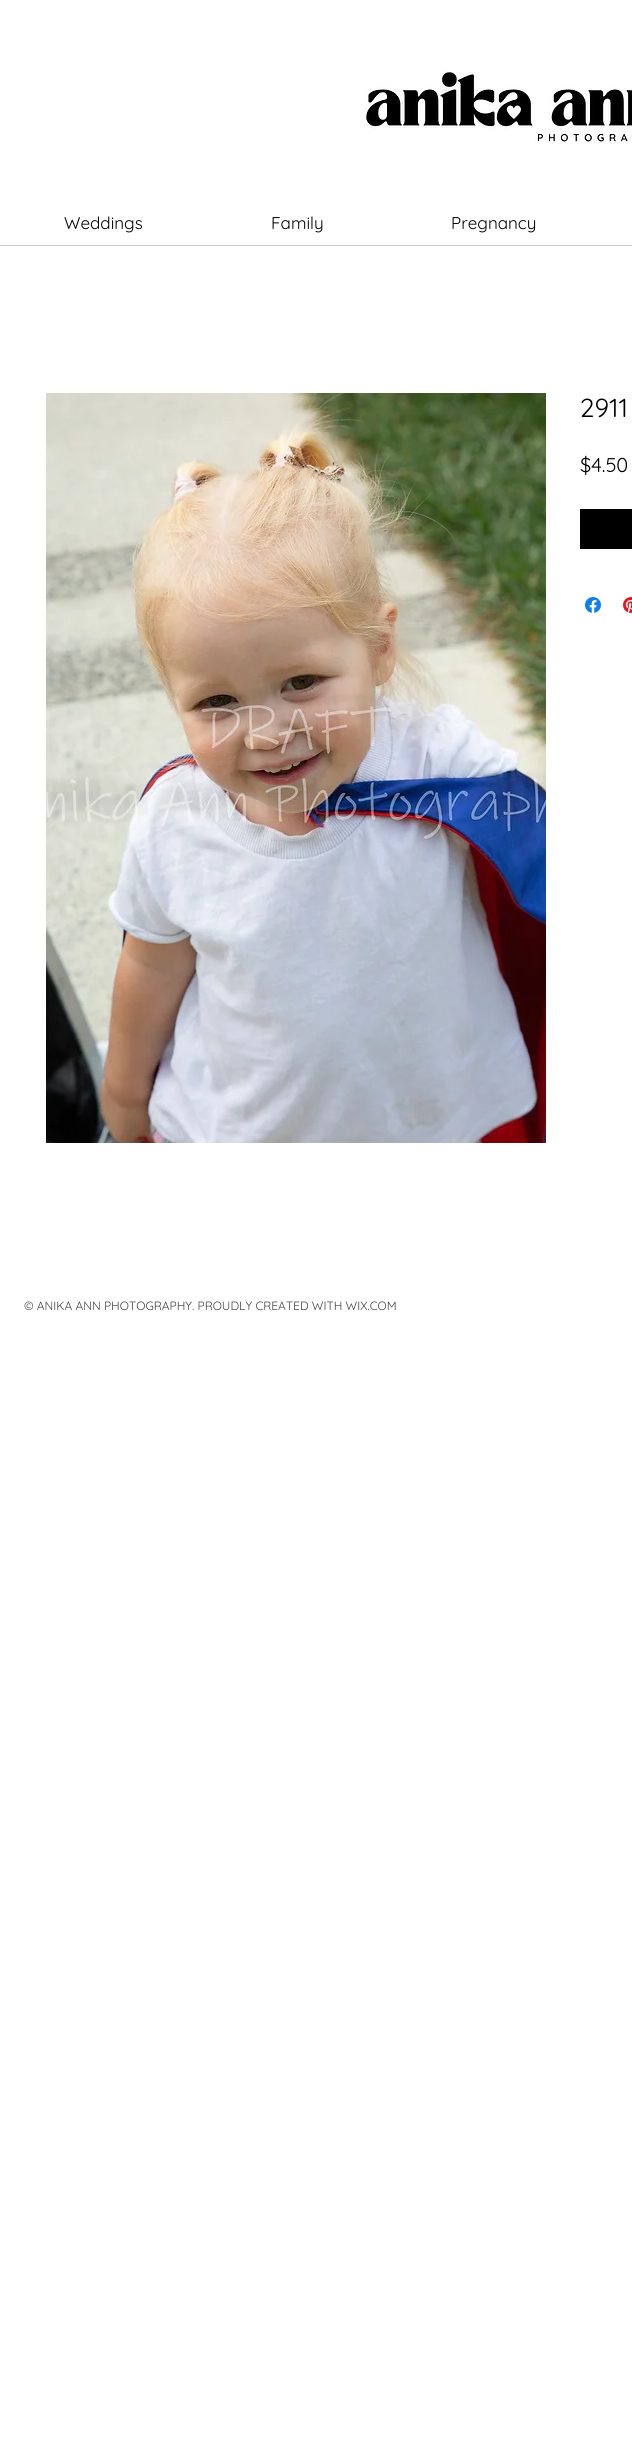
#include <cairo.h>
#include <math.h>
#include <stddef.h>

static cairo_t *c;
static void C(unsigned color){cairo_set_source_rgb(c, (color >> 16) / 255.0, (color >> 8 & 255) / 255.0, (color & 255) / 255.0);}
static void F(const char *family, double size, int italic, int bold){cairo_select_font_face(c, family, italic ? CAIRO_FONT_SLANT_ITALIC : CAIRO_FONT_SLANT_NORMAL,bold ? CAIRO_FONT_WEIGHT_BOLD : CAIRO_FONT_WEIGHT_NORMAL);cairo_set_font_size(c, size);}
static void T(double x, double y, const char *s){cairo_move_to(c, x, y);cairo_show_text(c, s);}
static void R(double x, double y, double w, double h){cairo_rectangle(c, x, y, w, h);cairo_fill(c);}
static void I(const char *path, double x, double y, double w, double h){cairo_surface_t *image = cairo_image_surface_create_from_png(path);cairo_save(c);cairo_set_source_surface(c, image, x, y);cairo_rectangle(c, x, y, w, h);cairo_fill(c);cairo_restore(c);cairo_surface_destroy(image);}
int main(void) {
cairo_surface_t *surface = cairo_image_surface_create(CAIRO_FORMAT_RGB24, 632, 2442);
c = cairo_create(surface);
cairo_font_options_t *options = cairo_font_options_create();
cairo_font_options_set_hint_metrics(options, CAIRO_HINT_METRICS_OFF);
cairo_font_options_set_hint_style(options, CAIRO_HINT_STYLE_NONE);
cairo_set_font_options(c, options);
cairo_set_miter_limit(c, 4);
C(0xffffff);
cairo_paint(c);
I("1.png",366,70,266,72);
F("Quicksand",17,0,0);
C(0x000000);
T(64,229,"Weddings");
T(271,229,"Family");
T(451,229,"Pregnancy");
C(0xcccccc);
R(0,245,632,1);
I("2.png",46,393,500,750);
F("Quicksand",26,0,0);
C(0x000000);
T(580,417,"2911");
F("Quicksand",20,0,0);
T(580,472,"$4.50");
R(580,509,52,40);
I("3.png",585,597,16,16);
I("4.png",623,597,9,16);
F("Quicksand",12,0,0);
C(0x404040);
T(24,1310,"© ANIKA ANN PHOTOGRAPHY. PROUDLY CREATED WITH WIX.COM");
cairo_surface_write_to_png(surface, "o.png");
cairo_font_options_destroy(options);
cairo_destroy(c);
cairo_surface_destroy(surface);
return 0;
}
